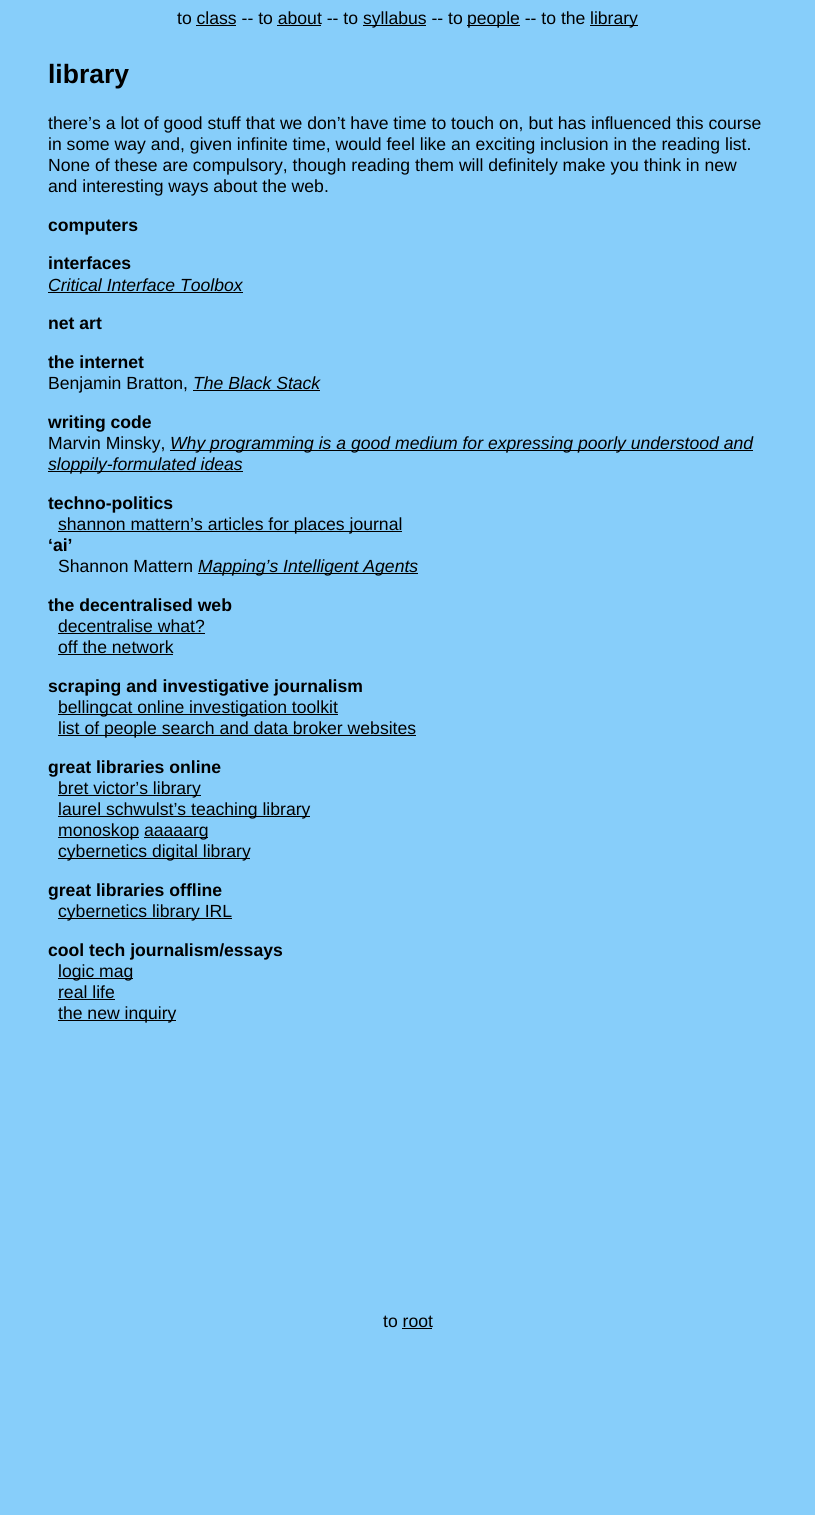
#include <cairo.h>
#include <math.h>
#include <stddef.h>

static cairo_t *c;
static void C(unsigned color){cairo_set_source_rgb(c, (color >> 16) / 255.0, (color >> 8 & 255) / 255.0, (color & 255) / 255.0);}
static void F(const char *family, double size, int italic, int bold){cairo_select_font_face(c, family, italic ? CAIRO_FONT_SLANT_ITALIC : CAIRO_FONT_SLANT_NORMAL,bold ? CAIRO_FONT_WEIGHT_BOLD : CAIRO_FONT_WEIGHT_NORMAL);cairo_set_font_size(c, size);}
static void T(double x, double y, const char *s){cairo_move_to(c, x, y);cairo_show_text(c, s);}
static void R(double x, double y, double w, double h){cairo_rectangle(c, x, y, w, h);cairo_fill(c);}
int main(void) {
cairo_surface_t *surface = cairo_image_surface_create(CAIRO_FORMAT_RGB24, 815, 1515);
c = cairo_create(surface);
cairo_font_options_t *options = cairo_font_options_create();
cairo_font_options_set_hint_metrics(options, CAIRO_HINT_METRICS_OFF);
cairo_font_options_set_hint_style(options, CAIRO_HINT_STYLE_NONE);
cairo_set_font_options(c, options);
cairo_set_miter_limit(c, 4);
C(0x87cefa);
cairo_paint(c);
F("Liberation Sans",17.6,0,0);
C(0x000000);
T(177,24,"to class -- to about -- to");
R(363,25,63,1);
T(363,24,"syllabus -- to");
R(467,25,53,1);
T(467,24,"people -- to the");
R(590,25,48,1);
T(590,24,"library");
R(196,25,40,1);
R(277,25,44,1);
F("Liberation Sans",26.5,0,1);
T(48,83,"library");
F("Liberation Sans",17.6,0,0);
T(48,129,"there’s a lot of good stuff that we don’t have time to touch on, but has influenced this course");
T(48,150,"in some way and, given infinite time, would feel like an exciting inclusion in the reading list.");
T(48,171,"None of these are compulsory, though reading them will definitely make you think in new");
T(48,192,"and interesting ways about the web.");
F("Liberation Sans",17.6,0,1);
T(48,231,"computers");
T(48,269,"interfaces");
F("Liberation Sans",17.6,1,0);
T(48,291,"Critical Interface Toolbox");
R(48,292,195,1);
F("Liberation Sans",17.6,0,1);
T(48,329,"net art");
T(48,368,"the internet");
F("Liberation Sans",17.6,0,0);
T(48,389,"Benjamin Bratton,");
F("Liberation Sans",17.6,1,0);
T(193,389,"The Black Stack");
R(193,390,127,1);
F("Liberation Sans",17.6,0,1);
T(48,428,"writing code");
F("Liberation Sans",17.6,0,0);
T(48,449,"Marvin Minsky,");
R(170,450,583,1);
F("Liberation Sans",17.6,1,0);
T(170,449,"Why programming is a good medium for expressing poorly understood and");
R(48,471,195,1);
T(48,470,"sloppily-formulated ideas");
F("Liberation Sans",17.6,0,1);
T(48,509,"techno-politics");
R(58,531,344,1);
F("Liberation Sans",17.6,0,0);
T(58,530,"shannon mattern’s articles for places journal");
F("Liberation Sans",17.6,0,1);
T(48,551,"‘ai’");
F("Liberation Sans",17.6,0,0);
T(58,572,"Shannon Mattern");
R(198,573,220,1);
F("Liberation Sans",17.6,1,0);
T(198,572,"Mapping’s Intelligent Agents");
F("Liberation Sans",17.6,0,1);
T(48,611,"the decentralised web");
F("Liberation Sans",17.6,0,0);
T(58,632,"decentralise what?");
R(58,633,147,1);
T(58,653,"off the network");
R(58,654,115,1);
F("Liberation Sans",17.6,0,1);
T(48,692,"scraping and investigative journalism");
R(58,714,280,1);
F("Liberation Sans",17.6,0,0);
T(58,713,"bellingcat online investigation toolkit");
R(58,735,358,1);
T(58,734,"list of people search and data broker websites");
F("Liberation Sans",17.6,0,1);
T(48,773,"great libraries online");
R(58,795,143,1);
F("Liberation Sans",17.6,0,0);
T(58,794,"bret victor’s library");
R(58,816,252,1);
T(58,815,"laurel schwulst’s teaching library");
R(58,837,81,1);
T(58,836,"monoskop");
R(144,837,64,1);
T(144,836,"aaaaarg");
R(58,858,192,1);
T(58,857,"cybernetics digital library");
F("Liberation Sans",17.6,0,1);
T(48,896,"great libraries offline");
R(58,918,174,1);
F("Liberation Sans",17.6,0,0);
T(58,917,"cybernetics library IRL");
F("Liberation Sans",17.6,0,1);
T(48,956,"cool tech journalism/essays");
R(58,978,75,1);
F("Liberation Sans",17.6,0,0);
T(58,977,"logic mag");
T(58,998,"real life");
R(58,999,57,1);
R(58,1020,118,1);
T(58,1019,"the new inquiry");
T(383,1327,"to root");
R(402,1328,30,1);
cairo_surface_write_to_png(surface, "o.png");
cairo_font_options_destroy(options);
cairo_destroy(c);
cairo_surface_destroy(surface);
return 0;
}
